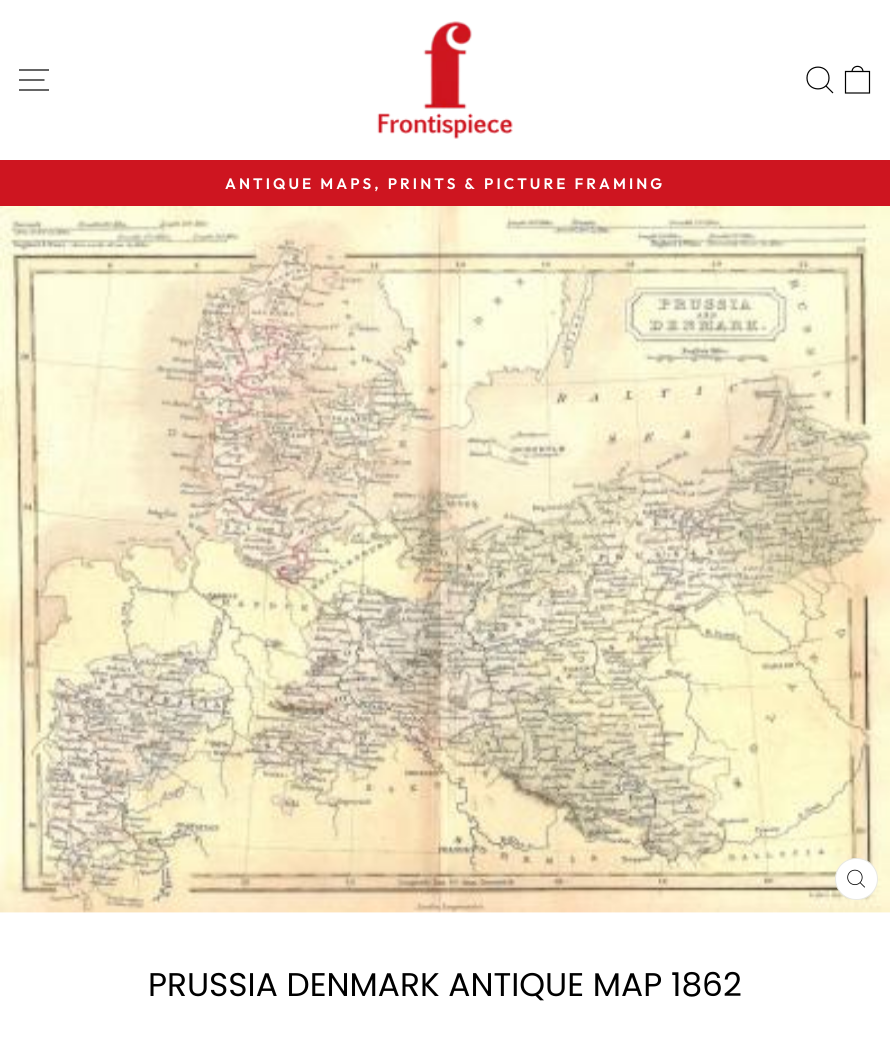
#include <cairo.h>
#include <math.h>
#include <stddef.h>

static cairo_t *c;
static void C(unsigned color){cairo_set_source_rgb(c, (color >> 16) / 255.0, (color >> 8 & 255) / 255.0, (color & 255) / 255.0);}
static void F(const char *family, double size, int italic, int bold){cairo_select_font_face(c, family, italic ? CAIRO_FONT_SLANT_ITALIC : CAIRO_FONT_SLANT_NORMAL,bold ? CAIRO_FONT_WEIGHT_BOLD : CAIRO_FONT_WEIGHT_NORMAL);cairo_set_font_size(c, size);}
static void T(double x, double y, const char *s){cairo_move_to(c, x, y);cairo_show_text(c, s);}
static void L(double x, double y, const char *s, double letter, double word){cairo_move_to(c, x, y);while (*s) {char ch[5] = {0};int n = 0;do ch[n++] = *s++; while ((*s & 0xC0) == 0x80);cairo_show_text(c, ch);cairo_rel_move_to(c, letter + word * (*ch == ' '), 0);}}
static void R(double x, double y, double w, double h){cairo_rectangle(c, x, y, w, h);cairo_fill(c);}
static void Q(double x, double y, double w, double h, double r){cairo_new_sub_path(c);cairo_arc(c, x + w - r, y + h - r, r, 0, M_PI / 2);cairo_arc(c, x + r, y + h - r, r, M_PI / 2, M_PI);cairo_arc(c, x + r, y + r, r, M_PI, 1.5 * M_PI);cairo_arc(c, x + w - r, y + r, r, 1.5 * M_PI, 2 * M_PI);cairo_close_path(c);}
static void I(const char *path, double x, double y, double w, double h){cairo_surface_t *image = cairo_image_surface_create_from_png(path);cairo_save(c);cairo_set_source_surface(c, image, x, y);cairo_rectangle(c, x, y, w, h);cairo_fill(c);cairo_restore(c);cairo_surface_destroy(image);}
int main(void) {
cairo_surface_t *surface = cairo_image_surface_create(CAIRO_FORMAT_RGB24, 890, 1041);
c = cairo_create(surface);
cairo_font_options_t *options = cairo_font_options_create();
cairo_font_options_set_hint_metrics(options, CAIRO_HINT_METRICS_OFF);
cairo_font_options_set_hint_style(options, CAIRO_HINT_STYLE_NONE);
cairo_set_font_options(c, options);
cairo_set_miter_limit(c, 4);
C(0xffffff);
cairo_paint(c);
cairo_new_path(c);
cairo_move_to(c,19,70);
cairo_line_to(c,49,70);
cairo_move_to(c,19,80);
cairo_line_to(c,44.5,80);
cairo_move_to(c,19,90);
cairo_line_to(c,49,90);
C(0x000000);
cairo_set_line_width(c,1.2);
cairo_stroke(c);
I("1.png",377,21,136,118);
cairo_new_path(c);
cairo_move_to(c,829,78);
cairo_curve_to(c,829,92.5,807,92.5,807,78);
cairo_curve_to(c,807,63.5,829,63.5,829,78);
cairo_close_path(c);
cairo_move_to(c,833,93);
cairo_line_to(c,826,86);
cairo_stroke(c);
cairo_new_path(c);
cairo_move_to(c,845.5,71.5);
cairo_line_to(c,869.5,71.5);
cairo_line_to(c,869.5,93);
cairo_line_to(c,845.5,93);
cairo_close_path(c);
cairo_move_to(c,852,72);
cairo_curve_to(c,852,64.5,863,64.5,863,72);
cairo_stroke(c);
C(0xce1520);
R(0,160,890,46);
F("Outfit SemiBold",15.2,0,0);
C(0xffffff);
L(225,189,"ANTIQUE MAPS, PRINTS & PICTURE FRAMING",3.05,0);
I("2.png",0,206,890,707);
Q(835.5,858.5,42,41,20.5);
cairo_fill_preserve(c);
C(0xe8e8e1);
cairo_set_line_width(c,1);
cairo_stroke(c);
I("3.png",847,869,18,19);
F("Poppins",32.8,0,0);
C(0x000000);
T(148,996,"PRUSSIA DENMARK ANTIQUE MAP 1862");
cairo_surface_write_to_png(surface, "o.png");
cairo_font_options_destroy(options);
cairo_destroy(c);
cairo_surface_destroy(surface);
return 0;
}
